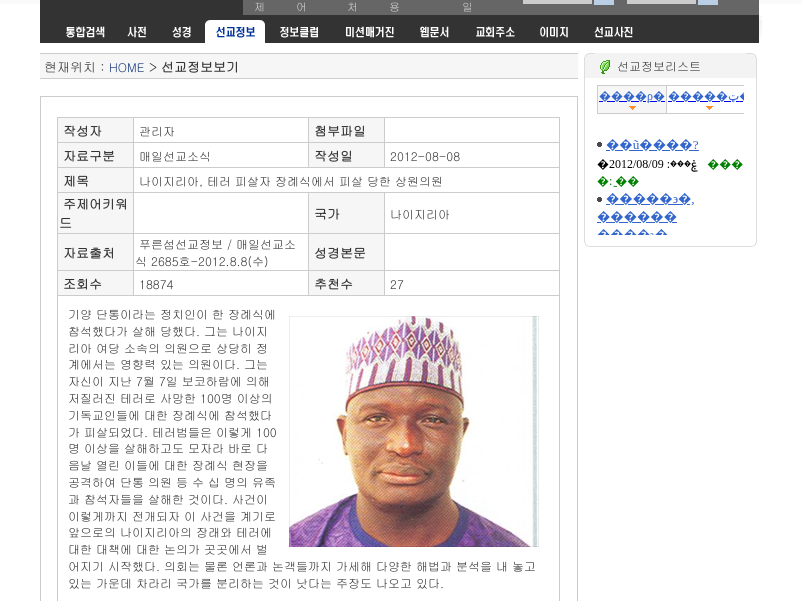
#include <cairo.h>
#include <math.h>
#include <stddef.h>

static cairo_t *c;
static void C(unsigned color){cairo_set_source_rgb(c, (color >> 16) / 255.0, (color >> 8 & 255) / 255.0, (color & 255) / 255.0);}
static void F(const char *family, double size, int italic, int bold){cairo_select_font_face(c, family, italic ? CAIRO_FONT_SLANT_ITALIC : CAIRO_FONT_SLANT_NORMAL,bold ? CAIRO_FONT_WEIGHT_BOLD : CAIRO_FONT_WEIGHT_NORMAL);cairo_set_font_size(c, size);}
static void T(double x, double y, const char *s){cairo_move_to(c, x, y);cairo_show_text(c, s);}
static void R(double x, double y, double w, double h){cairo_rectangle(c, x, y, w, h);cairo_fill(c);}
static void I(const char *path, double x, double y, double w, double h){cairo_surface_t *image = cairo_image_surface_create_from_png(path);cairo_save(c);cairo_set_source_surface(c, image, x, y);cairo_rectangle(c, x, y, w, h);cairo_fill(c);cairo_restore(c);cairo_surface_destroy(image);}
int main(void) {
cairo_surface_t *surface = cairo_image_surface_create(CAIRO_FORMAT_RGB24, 802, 601);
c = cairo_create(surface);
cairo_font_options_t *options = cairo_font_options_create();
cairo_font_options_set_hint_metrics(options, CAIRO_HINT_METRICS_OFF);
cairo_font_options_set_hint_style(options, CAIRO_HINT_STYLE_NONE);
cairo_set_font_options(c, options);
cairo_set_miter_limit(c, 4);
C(0xffffff);
cairo_paint(c);
C(0xfafafa);
R(0,0,802,4);
C(0x333333);
R(40,0,203,15);
C(0x666666);
R(243,0,516,15);
F("Gulim",11,0,0);
C(0xd2d2d2);
T(254,11,"제");
T(296,11,"어");
T(347,11,"처");
T(389,11,"용");
T(462,11,"일");
C(0xcccccc);
R(523,0,69,4);
C(0xb8cfe5);
R(594,0,20,5);
C(0xcccccc);
R(627,0,69,4);
C(0xb8cfe5);
R(698,0,20,5);
C(0xfafafa);
R(760,4,1,1);
C(0x333333);
R(40,15,719,28);
C(0xf7f7f7);
R(759,16,3,3);
I("1.png",66,26,39,12);
I("2.png",127,26,19,12);
I("3.png",172,26,19,12);
I("4.png",205,20,60,23);
I("5.png",280,27,38,11);
I("6.png",346,26,48,12);
I("7.png",420,26,29,12);
I("8.png",476,26,39,12);
I("9.png",540,26,28,12);
I("10.png",594,26,39,12);
I("11.png",759,20,3,19);
C(0xcccccc);
R(40,53,538,1);
C(0xf6f6f6);
R(40,54,538,24);
F("Gulim",13,0,0);
C(0x333333);
T(44,72,"현재위치 :");
F("Gulim",12,0,0);
C(0x113377);
T(109,72,"HOME");
F("Gulim",13,0,0);
C(0x333333);
T(149,72,">");
F("Gulim",13,0,1);
T(161,72,"선교정보보기");
C(0xcccccc);
R(40,78,538,1);
cairo_rectangle(c,40.5,96.5,537,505);
cairo_set_line_width(c,1);
cairo_stroke(c);
R(57,117,503,1);
R(559,117,1,484);
R(57,117,1,484);
C(0xf6f6f6);
R(58,118,75,24);
C(0x333333);
T(63,136,"작성자");
C(0xcccccc);
R(384,142,176,1);
R(133,167,427,1);
R(384,142,1,26);
R(308,142,77,1);
R(308,142,1,26);
R(133,142,176,1);
R(384,192,176,1);
R(384,233,176,1);
R(384,270,176,1);
R(57,295,503,1);
R(384,270,1,26);
R(308,270,77,1);
R(384,233,1,38);
R(308,233,77,1);
R(384,192,1,42);
R(308,192,77,1);
R(308,270,1,26);
R(133,270,176,1);
R(308,233,1,38);
R(133,233,176,1);
R(308,192,1,42);
R(133,192,176,1);
R(133,270,1,26);
R(57,270,77,1);
R(133,233,1,38);
R(57,233,77,1);
R(133,192,1,42);
R(57,192,77,1);
R(133,167,1,26);
R(57,167,77,1);
R(133,142,1,26);
R(57,142,77,1);
R(133,117,1,26);
F("Gulim",12,0,0);
C(0x333333);
T(139,136,"관리자");
C(0xf6f6f6);
R(309,118,75,24);
C(0xcccccc);
R(308,117,1,26);
F("Gulim",13,0,1);
C(0x333333);
T(314,136,"첨부파일");
C(0xcccccc);
R(384,117,1,26);
C(0xf6f6f6);
R(58,143,75,24);
C(0x333333);
T(63,161,"자료구분");
F("Gulim",12,0,0);
T(139,161,"매일선교소식");
C(0xf6f6f6);
R(309,143,75,24);
F("Gulim",13,0,1);
C(0x333333);
T(314,161,"작성일");
F("Gulim",12,0,0);
T(390,161,"2012-08-08");
C(0xf6f6f6);
R(58,168,75,24);
F("Gulim",13,0,1);
C(0x333333);
T(63,186,"제목");
F("Gulim",12,0,0);
T(139,186,"나이지리아, 테러 피살자 장례식에서 피살 당한 상원의원");
C(0xf6f6f6);
R(58,193,75,40);
F("Gulim",13,0,1);
C(0x333333);
T(63,209,"주제어키워");
T(59,228,"드");
C(0xf6f6f6);
R(309,193,75,40);
C(0x333333);
T(314,219,"국가");
F("Gulim",12,0,0);
T(390,219,"나이지리아");
C(0xf6f6f6);
R(58,234,75,36);
F("Gulim",13,0,1);
C(0x333333);
T(63,258,"자료출처");
F("Gulim",12,0,0);
T(139,249,"푸른섬선교정보 / 매일선교소");
T(135,266,"식 2685호-2012.8.8(수)");
C(0xf6f6f6);
R(309,234,75,36);
F("Gulim",13,0,1);
C(0x333333);
T(314,258,"성경본문");
C(0xf6f6f6);
R(58,271,75,24);
C(0x333333);
T(63,289,"조회수");
F("Gulim",12,0,0);
T(139,289,"18874");
C(0xf6f6f6);
R(309,271,75,24);
F("Gulim",13,0,1);
C(0x333333);
T(314,289,"추천수");
F("Gulim",12,0,0);
T(390,289,"27");
T(68,319,"기양 단통이라는 정치인이 한 장례식에");
T(68,336,"참석했다가 살해 당했다. 그는 나이지");
I("12.png",289,316,250,231);
T(68,353,"리아 여당 소속의 의원으로 상당히 정");
T(68,369,"계에서는 영향력 있는 의원이다. 그는");
T(68,386,"자신이 지난 7월 7일 보코하람에 의해");
T(68,403,"저질러진 테러로 사망한 100명 이상의");
T(68,420,"기독교인들에 대한 장례식에 참석했다");
T(68,437,"가 피살되었다. 테러범들은 이렇게 100");
T(68,453,"명 이상을 살해하고도 모자라 바로 다");
T(68,470,"음날 열린 이들에 대한 장례식 현장을");
T(68,487,"공격하여 단통 의원 등 수 십 명의 유족");
T(68,504,"과 참석자들을 살해한 것이다. 사건이");
T(68,521,"이렇게까지 전개되자 이 사건을 계기로");
T(68,537,"앞으로의 나이지리아의 장래와 테러에");
T(68,554,"대한 대책에 대한 논의가 곳곳에서 벌");
T(68,571,"어지기 시작했다. 의회는 물론 언론과 논객들까지 가세해 다양한 해법과 분석을 내 놓고");
T(68,588,"있는 가운데 차라리 국가를 분리하는 것이 낫다는 주장도 나오고 있다.");
I("13.png",584,53,11,25);
C(0xf3f3f3);
R(595,53,151,25);
I("14.png",600,60,10,14);
C(0x333333);
T(617,71,"선교정보리스트");
I("15.png",746,53,11,25);
C(0xdddddd);
R(584,78,1,159);
I("16.png",597,85,147,150);
R(756,78,1,159);
I("17.png",584,237,11,10);
R(595,246,151,1);
I("18.png",746,237,11,10);
cairo_surface_write_to_png(surface, "o.png");
cairo_font_options_destroy(options);
cairo_destroy(c);
cairo_surface_destroy(surface);
return 0;
}
